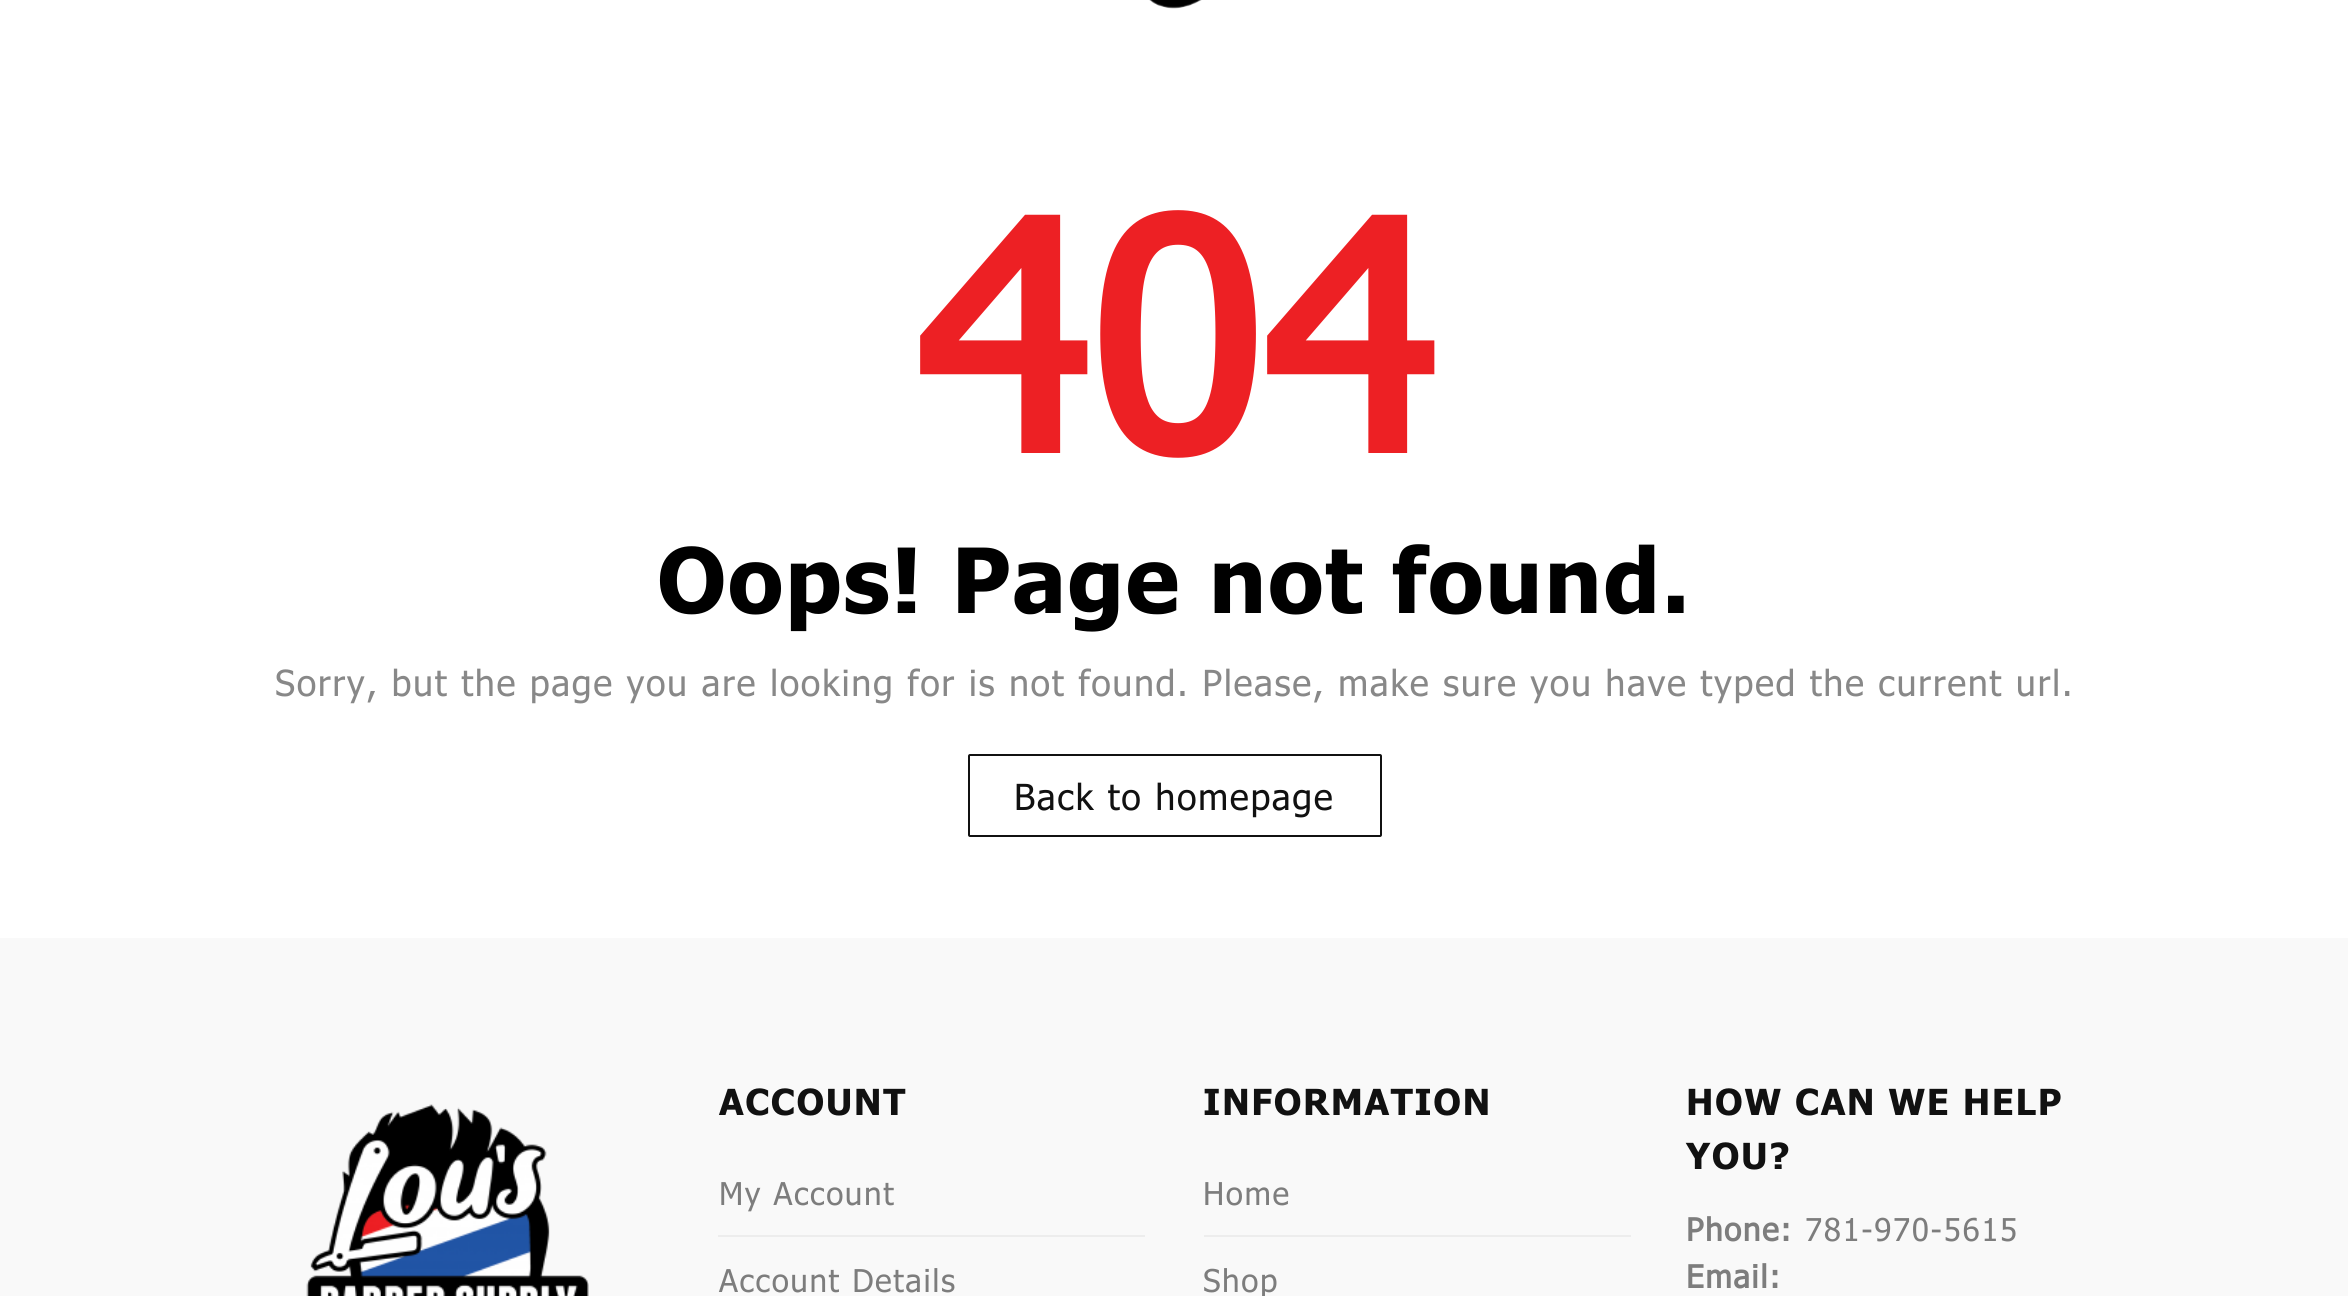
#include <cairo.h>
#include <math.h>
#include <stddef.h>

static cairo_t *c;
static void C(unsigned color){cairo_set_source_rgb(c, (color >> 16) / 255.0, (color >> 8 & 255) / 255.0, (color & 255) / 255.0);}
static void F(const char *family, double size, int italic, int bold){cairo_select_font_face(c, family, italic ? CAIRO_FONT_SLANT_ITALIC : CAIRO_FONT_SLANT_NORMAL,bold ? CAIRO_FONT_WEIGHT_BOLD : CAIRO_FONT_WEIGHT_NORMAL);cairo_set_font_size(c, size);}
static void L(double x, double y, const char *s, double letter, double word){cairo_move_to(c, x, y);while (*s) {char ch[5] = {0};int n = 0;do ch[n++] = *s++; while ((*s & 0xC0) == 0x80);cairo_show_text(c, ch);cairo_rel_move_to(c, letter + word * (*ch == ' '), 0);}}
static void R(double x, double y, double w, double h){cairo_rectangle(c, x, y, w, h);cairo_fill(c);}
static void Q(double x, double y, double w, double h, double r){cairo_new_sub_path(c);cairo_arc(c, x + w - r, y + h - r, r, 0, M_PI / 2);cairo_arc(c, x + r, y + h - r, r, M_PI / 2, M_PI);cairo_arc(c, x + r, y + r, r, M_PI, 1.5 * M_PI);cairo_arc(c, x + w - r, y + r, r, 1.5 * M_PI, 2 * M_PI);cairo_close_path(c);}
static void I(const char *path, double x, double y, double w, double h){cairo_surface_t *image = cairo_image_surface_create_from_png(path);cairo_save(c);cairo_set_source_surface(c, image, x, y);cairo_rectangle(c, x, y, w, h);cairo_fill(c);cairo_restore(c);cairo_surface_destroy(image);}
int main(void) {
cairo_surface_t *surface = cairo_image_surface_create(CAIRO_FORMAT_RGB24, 2348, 1296);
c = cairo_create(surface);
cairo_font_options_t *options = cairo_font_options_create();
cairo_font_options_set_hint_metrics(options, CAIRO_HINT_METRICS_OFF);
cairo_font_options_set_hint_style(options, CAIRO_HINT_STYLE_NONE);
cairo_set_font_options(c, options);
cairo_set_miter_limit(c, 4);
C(0xffffff);
cairo_paint(c);
I("1.png",1149,0,53,9);
F("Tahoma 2",315,0,1);
C(0xed2024);
L(914,453,"404",1.57,0);
F("Tahoma",90,0,1);
C(0x000000);
L(657,613,"Oops! Page not found.",1.57,0);
F("Tahoma",36,0,0);
C(0x888888);
L(275,696,"Sorry, but the page you are looking for is not found. Please, make sure you have typed the current url.",1.57,0);
Q(969,755,412,81,1);
C(0x111111);
cairo_stroke(c);
L(1014,810,"Back to homepage",1.57,0);
C(0xf9f9f9);
R(0,938,2348,358);
I("2.png",306,1104,283,192);
F("Tahoma",36,0,1);
C(0x111111);
L(719,1115,"ACCOUNT",1.57,0);
C(0xededed);
R(718,1235,427,2);
F("Tahoma",31.5,0,0);
C(0x7d7d7d);
L(719,1205,"My Account",1.57,0);
L(719,1292,"Account Details",1.57,0);
F("Tahoma",36,0,1);
C(0x111111);
L(1203,1115,"INFORMATION",1.57,0);
C(0xededed);
R(1204,1235,427,2);
F("Tahoma",31.5,0,0);
C(0x7d7d7d);
L(1203,1205,"Home",1.57,0);
L(1203,1292,"Shop",1.57,0);
F("Tahoma",36,0,1);
C(0x111111);
L(1686,1115,"HOW CAN WE HELP",1.57,0);
L(1686,1169,"YOU?",1.57,0);
F("Tahoma 2",31.5,0,1);
C(0x7d7d7d);
L(1686,1241,"Phone:",1.57,0);
F("Tahoma",31.5,0,0);
L(1805,1241,"781-970-5615",1.57,0);
F("Tahoma 2",31.5,0,1);
L(1686,1288,"Email:",1.57,0);
cairo_surface_write_to_png(surface, "o.png");
cairo_font_options_destroy(options);
cairo_destroy(c);
cairo_surface_destroy(surface);
return 0;
}
